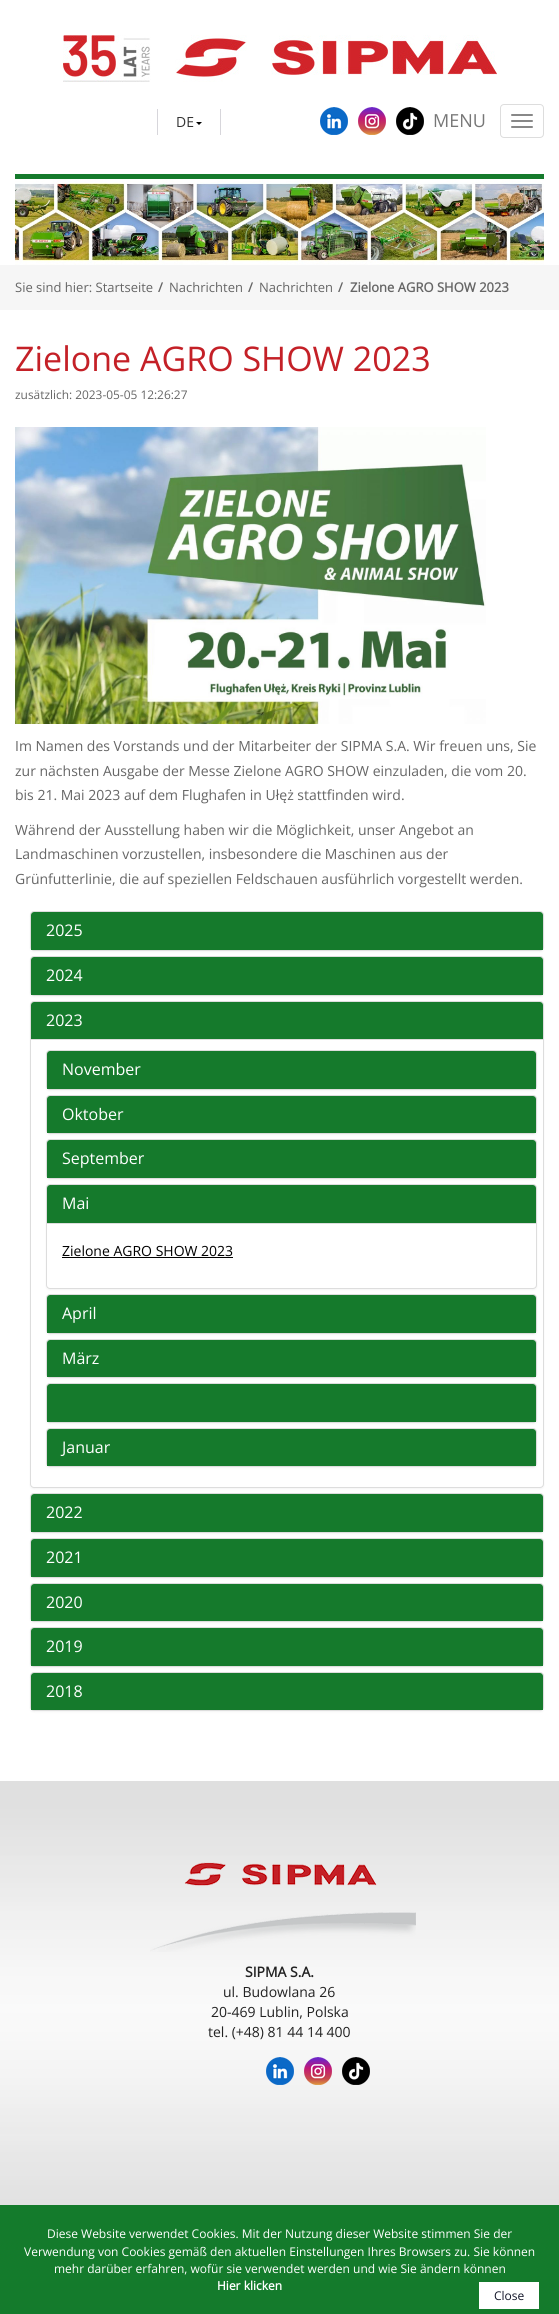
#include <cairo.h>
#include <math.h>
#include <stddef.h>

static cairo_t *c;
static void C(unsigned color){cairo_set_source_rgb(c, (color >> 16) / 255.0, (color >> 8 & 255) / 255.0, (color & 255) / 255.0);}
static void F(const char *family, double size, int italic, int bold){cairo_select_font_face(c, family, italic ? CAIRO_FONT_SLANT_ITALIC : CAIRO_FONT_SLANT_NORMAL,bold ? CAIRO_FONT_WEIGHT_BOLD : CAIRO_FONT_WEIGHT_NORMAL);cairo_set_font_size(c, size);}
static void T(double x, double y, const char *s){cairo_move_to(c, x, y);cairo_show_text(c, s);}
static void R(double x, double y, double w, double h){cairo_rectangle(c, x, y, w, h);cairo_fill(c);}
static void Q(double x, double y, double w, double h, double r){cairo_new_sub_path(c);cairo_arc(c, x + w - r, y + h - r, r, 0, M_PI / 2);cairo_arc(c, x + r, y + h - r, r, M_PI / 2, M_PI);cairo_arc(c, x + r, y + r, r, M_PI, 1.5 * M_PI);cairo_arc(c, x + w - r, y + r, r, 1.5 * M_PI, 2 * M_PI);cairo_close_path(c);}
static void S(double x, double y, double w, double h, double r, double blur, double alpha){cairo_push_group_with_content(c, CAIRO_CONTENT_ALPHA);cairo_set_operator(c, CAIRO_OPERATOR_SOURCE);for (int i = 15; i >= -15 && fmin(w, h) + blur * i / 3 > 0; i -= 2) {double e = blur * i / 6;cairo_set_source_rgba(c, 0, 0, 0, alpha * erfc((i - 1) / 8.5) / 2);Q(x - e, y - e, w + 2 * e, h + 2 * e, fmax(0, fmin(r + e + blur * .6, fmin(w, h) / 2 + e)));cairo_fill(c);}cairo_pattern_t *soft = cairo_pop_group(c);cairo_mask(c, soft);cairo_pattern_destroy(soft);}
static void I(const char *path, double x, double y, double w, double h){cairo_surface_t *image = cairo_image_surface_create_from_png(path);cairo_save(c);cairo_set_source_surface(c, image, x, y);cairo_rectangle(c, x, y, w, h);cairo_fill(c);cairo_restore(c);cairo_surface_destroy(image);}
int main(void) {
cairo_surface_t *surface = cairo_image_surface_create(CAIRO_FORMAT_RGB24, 559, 2314);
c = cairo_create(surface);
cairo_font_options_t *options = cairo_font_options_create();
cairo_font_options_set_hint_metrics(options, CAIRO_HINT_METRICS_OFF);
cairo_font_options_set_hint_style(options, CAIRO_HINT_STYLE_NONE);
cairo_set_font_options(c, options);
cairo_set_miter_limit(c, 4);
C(0xffffff);
cairo_paint(c);
I("1.png",63,35,434,47);
C(0xd7d6db);
R(220,109,1,26);
R(157,109,1,26);
F("Open Sans",14,0,0);
C(0x333333);
T(176,127,"DE");
C(0x000000);
cairo_new_path(c);
cairo_move_to(c,196,122);
cairo_line_to(c,202,122);
cairo_line_to(c,199,125);
cairo_close_path(c);
cairo_fill(c);
I("2.png",320,107,28,28);
I("3.png",358,107,28,28);
I("4.png",396,107,28,28);
F("Open Sans",18,0,0);
C(0x777777);
T(433,127,"MENU");
Q(500.5,104.5,43,33,3.5);
C(0xdddddd);
cairo_set_line_width(c,1);
cairo_stroke(c);
C(0x888888);
Q(511,114,22,2,1);
cairo_fill(c);
Q(511,120,22,2,1);
cairo_fill(c);
Q(511,126,22,2,1);
cairo_fill(c);
C(0x157a2c);
R(15,174,529,5);
I("5.png",15,179,529,86);
C(0xf6f6f6);
R(0,265,559,45);
F("Open Sans",13,0,0);
C(0x666666);
T(15,292,"Sie sind hier: Startseite");
F("Open Sans",13,0,1);
T(158,292,"/");
F("Open Sans",13,0,0);
T(169,292,"Nachrichten");
F("Open Sans",13,0,1);
T(248,292,"/");
F("Open Sans",13,0,0);
T(259,292,"Nachrichten");
F("Open Sans",13,0,1);
T(338,292,"/");
T(350,292,"Zielone AGRO SHOW 2023");
F("Open Sans",34,0,0);
C(0xc42027);
T(15,371,"Zielone AGRO SHOW 2023");
F("Open Sans",11.9,0,0);
C(0x666666);
T(15,399,"zusätzlich: 2023-05-05 12:26:27");
I("6.png",15,427,471,297);
F("Open Sans",14,0,0);
T(15,751,"Im Namen des Vorstands und der Mitarbeiter der SIPMA S.A. Wir freuen uns, Sie");
T(15,776,"zur nächsten Ausgabe der Messe Zielone AGRO SHOW einzuladen, die vom 20.");
T(15,800,"bis 21. Mai 2023 auf dem Flughafen in Ułęż stattfinden wird.");
T(15,835,"Während der Ausstellung haben wir die Möglichkeit, unser Angebot an");
T(15,859,"Landmaschinen vorzustellen, insbesondere die Maschinen aus der");
T(15,884,"Grünfutterlinie, die auf speziellen Feldschauen ausführlich vorgestellt werden.");
C(0x000000);
S(30,912,514,40,4,1,.05);
Q(30.5,911.5,513,39,3.5);
C(0xdddddd);
cairo_stroke(c);
C(0x157a2c);
cairo_new_path(c);
cairo_move_to(c,34,912);
cairo_line_to(c,540,912);
cairo_curve_to(c,541.5,912,543,913.5,543,915);
cairo_line_to(c,543,950);
cairo_line_to(c,31,950);
cairo_line_to(c,31,915);
cairo_curve_to(c,31,913.5,32.5,912,34,912);
cairo_close_path(c);
cairo_fill(c);
F("Open Sans",16,0,0);
C(0xffffff);
T(46,936,"2025");
C(0x000000);
S(30,957,514,40,4,1,.05);
Q(30.5,956.5,513,39,3.5);
C(0xdddddd);
cairo_stroke(c);
C(0x157a2c);
cairo_new_path(c);
cairo_move_to(c,34,957);
cairo_line_to(c,540,957);
cairo_curve_to(c,541.5,957,543,958.5,543,960);
cairo_line_to(c,543,995);
cairo_line_to(c,31,995);
cairo_line_to(c,31,960);
cairo_curve_to(c,31,958.5,32.5,957,34,957);
cairo_close_path(c);
cairo_fill(c);
C(0xffffff);
T(46,981,"2024");
C(0x000000);
S(30,1002,514,487,4,1,.05);
C(0xffffff);
Q(30.5,1001.5,513,486,3.5);
cairo_fill_preserve(c);
C(0xdddddd);
cairo_stroke(c);
C(0x157a2c);
cairo_new_path(c);
cairo_move_to(c,34,1002);
cairo_line_to(c,540,1002);
cairo_curve_to(c,541.5,1002,543,1003.5,543,1005);
cairo_line_to(c,543,1039);
cairo_line_to(c,31,1039);
cairo_line_to(c,31,1005);
cairo_curve_to(c,31,1003.5,32.5,1002,34,1002);
cairo_close_path(c);
cairo_fill(c);
C(0xffffff);
T(46,1026,"2023");
C(0xdddddd);
R(31,1039,512,1);
C(0x000000);
S(46,1051,491,40,4,1,.05);
Q(46.5,1050.5,490,39,3.5);
C(0xdddddd);
cairo_stroke(c);
C(0x157a2c);
cairo_new_path(c);
cairo_move_to(c,50,1051);
cairo_line_to(c,533,1051);
cairo_curve_to(c,534.5,1051,536,1052.5,536,1054);
cairo_line_to(c,536,1089);
cairo_line_to(c,47,1089);
cairo_line_to(c,47,1054);
cairo_curve_to(c,47,1052.5,48.5,1051,50,1051);
cairo_close_path(c);
cairo_fill(c);
C(0xffffff);
T(62,1075,"November");
C(0x000000);
S(46,1096,491,39,4,1,.05);
Q(46.5,1095.5,490,38,3.5);
C(0xdddddd);
cairo_stroke(c);
C(0x157a2c);
cairo_new_path(c);
cairo_move_to(c,50,1096);
cairo_line_to(c,533,1096);
cairo_curve_to(c,534.5,1096,536,1097.5,536,1099);
cairo_line_to(c,536,1133);
cairo_line_to(c,47,1133);
cairo_line_to(c,47,1099);
cairo_curve_to(c,47,1097.5,48.5,1096,50,1096);
cairo_close_path(c);
cairo_fill(c);
C(0xffffff);
T(62,1120,"Oktober");
C(0x000000);
S(46,1140,491,40,4,1,.05);
Q(46.5,1139.5,490,39,3.5);
C(0xdddddd);
cairo_stroke(c);
C(0x157a2c);
cairo_new_path(c);
cairo_move_to(c,50,1140);
cairo_line_to(c,533,1140);
cairo_curve_to(c,534.5,1140,536,1141.5,536,1143);
cairo_line_to(c,536,1178);
cairo_line_to(c,47,1178);
cairo_line_to(c,47,1143);
cairo_curve_to(c,47,1141.5,48.5,1140,50,1140);
cairo_close_path(c);
cairo_fill(c);
C(0xffffff);
T(62,1164,"September");
C(0x000000);
S(46,1185,491,105,4,1,.05);
C(0xffffff);
Q(46.5,1184.5,490,104,3.5);
cairo_fill_preserve(c);
C(0xdddddd);
cairo_stroke(c);
C(0x157a2c);
cairo_new_path(c);
cairo_move_to(c,50,1185);
cairo_line_to(c,533,1185);
cairo_curve_to(c,534.5,1185,536,1186.5,536,1188);
cairo_line_to(c,536,1223);
cairo_line_to(c,47,1223);
cairo_line_to(c,47,1188);
cairo_curve_to(c,47,1186.5,48.5,1185,50,1185);
cairo_close_path(c);
cairo_fill(c);
C(0xffffff);
T(62,1209,"Mai");
C(0xdddddd);
R(47,1223,489,1);
F("Open Sans",14,0,0);
C(0x000000);
T(62,1256,"Zielone AGRO SHOW 2023");
R(62,1257,171,1);
C(0x000000);
S(46,1295,491,40,4,1,.05);
Q(46.5,1294.5,490,39,3.5);
C(0xdddddd);
cairo_stroke(c);
C(0x157a2c);
cairo_new_path(c);
cairo_move_to(c,50,1295);
cairo_line_to(c,533,1295);
cairo_curve_to(c,534.5,1295,536,1296.5,536,1298);
cairo_line_to(c,536,1333);
cairo_line_to(c,47,1333);
cairo_line_to(c,47,1298);
cairo_curve_to(c,47,1296.5,48.5,1295,50,1295);
cairo_close_path(c);
cairo_fill(c);
F("Open Sans",16,0,0);
C(0xffffff);
T(62,1319,"April");
C(0x000000);
S(46,1340,491,39,4,1,.05);
Q(46.5,1339.5,490,38,3.5);
C(0xdddddd);
cairo_stroke(c);
C(0x157a2c);
cairo_new_path(c);
cairo_move_to(c,50,1340);
cairo_line_to(c,533,1340);
cairo_curve_to(c,534.5,1340,536,1341.5,536,1343);
cairo_line_to(c,536,1377);
cairo_line_to(c,47,1377);
cairo_line_to(c,47,1343);
cairo_curve_to(c,47,1341.5,48.5,1340,50,1340);
cairo_close_path(c);
cairo_fill(c);
C(0xffffff);
T(62,1364,"März");
C(0x000000);
S(46,1384,491,40,4,1,.05);
Q(46.5,1383.5,490,39,3.5);
C(0xdddddd);
cairo_stroke(c);
C(0x157a2c);
cairo_new_path(c);
cairo_move_to(c,50,1384);
cairo_line_to(c,533,1384);
cairo_curve_to(c,534.5,1384,536,1385.5,536,1387);
cairo_line_to(c,536,1422);
cairo_line_to(c,47,1422);
cairo_line_to(c,47,1387);
cairo_curve_to(c,47,1385.5,48.5,1384,50,1384);
cairo_close_path(c);
cairo_fill(c);
C(0x000000);
S(46,1429,491,39,4,1,.05);
Q(46.5,1428.5,490,38,3.5);
C(0xdddddd);
cairo_stroke(c);
C(0x157a2c);
cairo_new_path(c);
cairo_move_to(c,50,1429);
cairo_line_to(c,533,1429);
cairo_curve_to(c,534.5,1429,536,1430.5,536,1432);
cairo_line_to(c,536,1466);
cairo_line_to(c,47,1466);
cairo_line_to(c,47,1432);
cairo_curve_to(c,47,1430.5,48.5,1429,50,1429);
cairo_close_path(c);
cairo_fill(c);
C(0xffffff);
T(62,1453,"Januar");
C(0x000000);
S(30,1494,514,40,4,1,.05);
Q(30.5,1493.5,513,39,3.5);
C(0xdddddd);
cairo_stroke(c);
C(0x157a2c);
cairo_new_path(c);
cairo_move_to(c,34,1494);
cairo_line_to(c,540,1494);
cairo_curve_to(c,541.5,1494,543,1495.5,543,1497);
cairo_line_to(c,543,1532);
cairo_line_to(c,31,1532);
cairo_line_to(c,31,1497);
cairo_curve_to(c,31,1495.5,32.5,1494,34,1494);
cairo_close_path(c);
cairo_fill(c);
C(0xffffff);
T(46,1518,"2022");
C(0x000000);
S(30,1539,514,40,4,1,.05);
Q(30.5,1538.5,513,39,3.5);
C(0xdddddd);
cairo_stroke(c);
C(0x157a2c);
cairo_new_path(c);
cairo_move_to(c,34,1539);
cairo_line_to(c,540,1539);
cairo_curve_to(c,541.5,1539,543,1540.5,543,1542);
cairo_line_to(c,543,1577);
cairo_line_to(c,31,1577);
cairo_line_to(c,31,1542);
cairo_curve_to(c,31,1540.5,32.5,1539,34,1539);
cairo_close_path(c);
cairo_fill(c);
C(0xffffff);
T(46,1563,"2021");
C(0x000000);
S(30,1584,514,39,4,1,.05);
Q(30.5,1583.5,513,38,3.5);
C(0xdddddd);
cairo_stroke(c);
C(0x157a2c);
cairo_new_path(c);
cairo_move_to(c,34,1584);
cairo_line_to(c,540,1584);
cairo_curve_to(c,541.5,1584,543,1585.5,543,1587);
cairo_line_to(c,543,1621);
cairo_line_to(c,31,1621);
cairo_line_to(c,31,1587);
cairo_curve_to(c,31,1585.5,32.5,1584,34,1584);
cairo_close_path(c);
cairo_fill(c);
C(0xffffff);
T(46,1608,"2020");
C(0x000000);
S(30,1628,514,40,4,1,.05);
Q(30.5,1627.5,513,39,3.5);
C(0xdddddd);
cairo_stroke(c);
C(0x157a2c);
cairo_new_path(c);
cairo_move_to(c,34,1628);
cairo_line_to(c,540,1628);
cairo_curve_to(c,541.5,1628,543,1629.5,543,1631);
cairo_line_to(c,543,1666);
cairo_line_to(c,31,1666);
cairo_line_to(c,31,1631);
cairo_curve_to(c,31,1629.5,32.5,1628,34,1628);
cairo_close_path(c);
cairo_fill(c);
C(0xffffff);
T(46,1652,"2019");
C(0x000000);
S(30,1673,514,39,4,1,.05);
Q(30.5,1672.5,513,38,3.5);
C(0xdddddd);
cairo_stroke(c);
C(0x157a2c);
cairo_new_path(c);
cairo_move_to(c,34,1673);
cairo_line_to(c,540,1673);
cairo_curve_to(c,541.5,1673,543,1674.5,543,1676);
cairo_line_to(c,543,1710);
cairo_line_to(c,31,1710);
cairo_line_to(c,31,1676);
cairo_curve_to(c,31,1674.5,32.5,1673,34,1673);
cairo_close_path(c);
cairo_fill(c);
C(0xffffff);
T(46,1697,"2018");
I("7.png",0,1781,559,424);
I("8.png",150,1862,266,90);
F("Open Sans",14,0,1);
C(0x222222);
T(245,1977,"SIPMA S.A.");
F("Open Sans",14,0,0);
T(223,1997,"ul. Budowlana 26");
T(211,2017,"20-469 Lublin, Polska");
T(208,2037,"tel. (+48) 81 44 14 400");
I("9.png",266,2057,28,28);
I("10.png",304,2057,28,28);
I("11.png",342,2057,28,28);
C(0x147b2c);
R(0,2205,559,109);
F("Open Sans",12,0,0);
C(0xffffff);
T(47,2238,"Diese Website verwendet Cookies. Mit der Nutzung dieser Website stimmen Sie der");
T(24,2256,"Verwendung von Cookies gemäß den aktuellen Einstellungen Ihres Browsers zu. Sie können");
T(54,2273,"mehr darüber erfahren, wofür sie verwendet werden und wie Sie ändern können");
F("Open Sans",12,0,1);
T(217,2290,"Hier klicken");
R(479,2282,60,27);
F("Open Sans",12,0,0);
C(0x131629);
T(494,2300,"Close");
cairo_surface_write_to_png(surface, "o.png");
cairo_font_options_destroy(options);
cairo_destroy(c);
cairo_surface_destroy(surface);
return 0;
}
